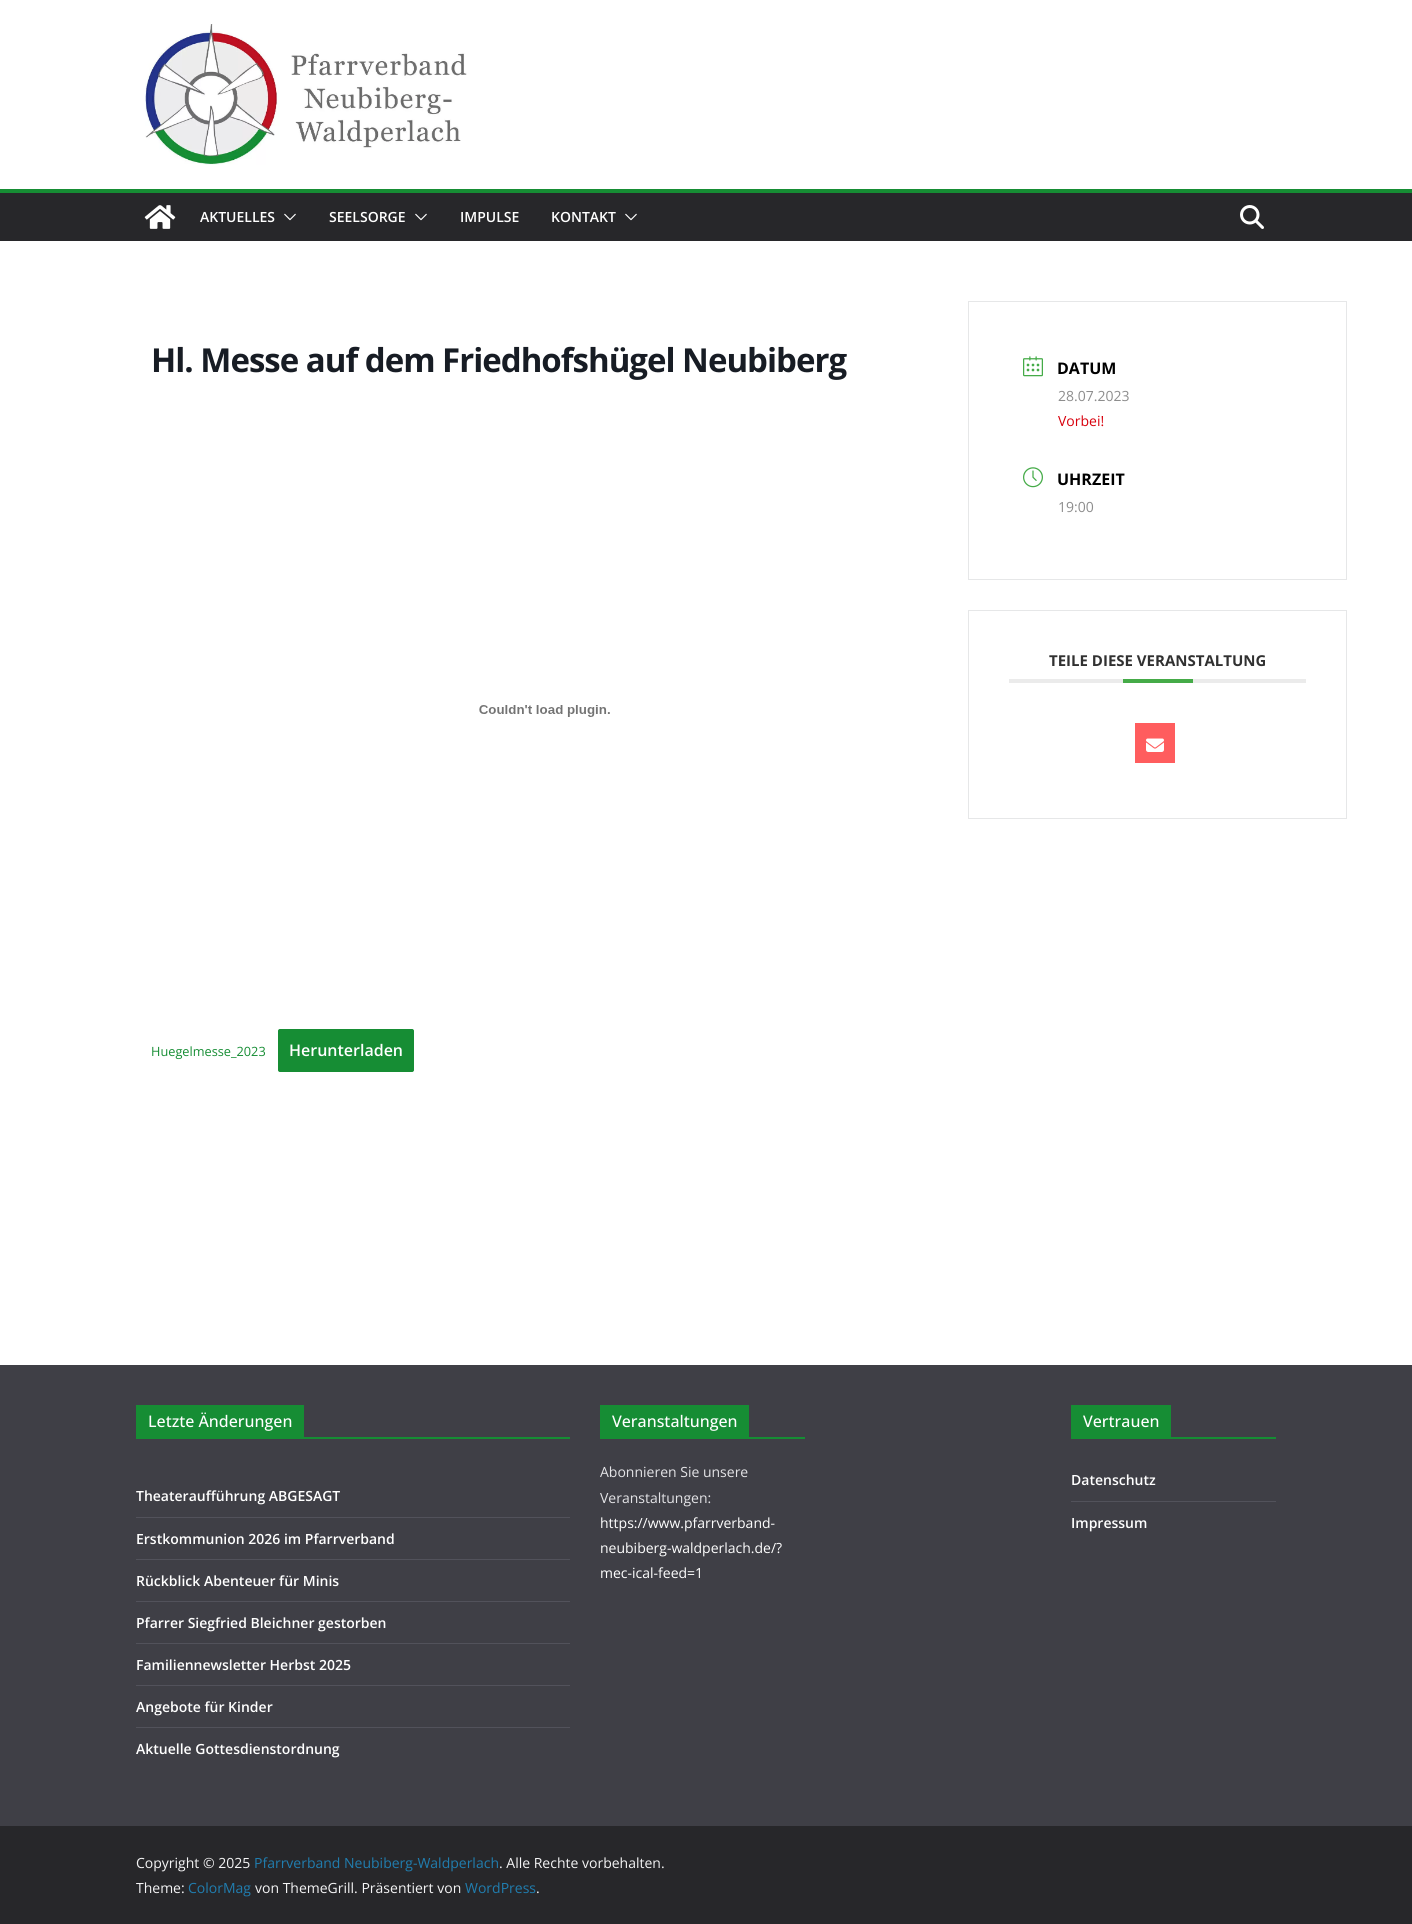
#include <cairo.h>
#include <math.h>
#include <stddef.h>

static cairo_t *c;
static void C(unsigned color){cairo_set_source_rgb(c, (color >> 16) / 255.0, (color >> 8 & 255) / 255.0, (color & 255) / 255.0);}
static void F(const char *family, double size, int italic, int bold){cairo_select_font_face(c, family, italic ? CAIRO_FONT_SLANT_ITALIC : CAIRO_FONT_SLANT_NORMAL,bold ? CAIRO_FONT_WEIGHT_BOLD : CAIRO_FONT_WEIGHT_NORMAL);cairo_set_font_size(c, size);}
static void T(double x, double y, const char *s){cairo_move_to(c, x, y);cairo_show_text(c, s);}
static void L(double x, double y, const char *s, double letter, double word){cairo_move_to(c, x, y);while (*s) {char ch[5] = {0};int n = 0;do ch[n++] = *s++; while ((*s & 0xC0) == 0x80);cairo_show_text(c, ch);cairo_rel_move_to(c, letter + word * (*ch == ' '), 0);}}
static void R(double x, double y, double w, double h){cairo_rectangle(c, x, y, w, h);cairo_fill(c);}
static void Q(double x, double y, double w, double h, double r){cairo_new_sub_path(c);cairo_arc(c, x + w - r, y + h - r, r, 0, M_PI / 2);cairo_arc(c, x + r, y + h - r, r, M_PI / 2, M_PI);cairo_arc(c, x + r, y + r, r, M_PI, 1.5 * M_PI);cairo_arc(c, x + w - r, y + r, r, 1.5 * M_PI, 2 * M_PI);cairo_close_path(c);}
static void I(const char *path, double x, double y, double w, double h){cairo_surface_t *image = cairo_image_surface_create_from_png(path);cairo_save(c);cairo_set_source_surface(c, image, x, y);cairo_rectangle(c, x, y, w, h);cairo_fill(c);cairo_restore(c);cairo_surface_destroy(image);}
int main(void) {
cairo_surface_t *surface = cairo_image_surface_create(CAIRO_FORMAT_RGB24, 1412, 1924);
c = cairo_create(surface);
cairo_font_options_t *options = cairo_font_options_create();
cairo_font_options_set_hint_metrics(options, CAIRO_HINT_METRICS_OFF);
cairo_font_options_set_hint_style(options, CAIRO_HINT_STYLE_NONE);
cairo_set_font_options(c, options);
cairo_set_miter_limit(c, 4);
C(0xffffff);
cairo_paint(c);
I("1.png",145,24,322,141);
C(0x27272a);
R(0,193,1412,48);
C(0x168d34);
R(0,189,1412,4);
I("2.png",144,205,32,24);
F("Open Sans SemiBold",14,0,0);
C(0xffffff);
T(200,222,"AKTUELLES");
I("3.png",284,213,12,8);
T(329,222,"SEELSORGE");
I("3.png",415,213,12,8);
T(460,222,"IMPULSE");
T(551,222,"KONTAKT");
I("3.png",625,213,12,8);
I("4.png",1240,205,24,24);
F("Open Sans",33,0,1);
C(0x171c24);
L(151,372,"Hl. Messe auf dem Friedhofshügel Neubiberg",-1,0);
I("5.png",479,705,131,12);
F("Open Sans",12.75,0,0);
C(0x168d34);
T(151,1056,"Huegelmesse_2023");
Q(278.5,1029.5,135,42,1.5);
cairo_fill_preserve(c);
cairo_set_line_width(c,1);
cairo_stroke(c);
F("Open Sans SemiBold",16,0,0);
C(0xffffff);
T(289,1056,"Herunterladen");
cairo_rectangle(c,968.5,301.5,378,278);
C(0xe6e7e8);
cairo_stroke(c);
I("6.png",1023,356,20,21);
F("Open Sans",16,0,1);
C(0x000000);
T(1057,374,"DATUM");
F("Open Sans",14,0,0);
C(0x8d8d8d);
T(1058,401,"28.07.2023");
C(0xd8000c);
T(1058,426,"Vorbei!");
I("7.png",1023,467,20,21);
F("Open Sans",16,0,1);
C(0x000000);
T(1057,485,"UHRZEIT");
F("Open Sans",14,0,0);
C(0x8d8d8d);
T(1058,512,"19:00");
cairo_rectangle(c,968.5,610.5,378,208);
C(0xe6e7e8);
cairo_stroke(c);
C(0xebebeb);
R(1009,679,297,4);
F("Open Sans",15,0,1);
C(0x313131);
T(1049,666,"TEILE DIESE VERANSTALTUNG");
C(0x45ab48);
R(1123,679,70,4);
C(0xff5d5e);
R(1135,723,40,40);
I("8.png",1146,738,18,14);
C(0x3f3f46);
R(0,1365,1412,461);
C(0x168d34);
R(136,1437,434,2);
R(136,1405,168,32);
F("Open Sans Medium",16,0,0);
C(0xffffff);
T(148,1427,"Letzte Änderungen");
C(0x52525b);
R(136,1517,434,1);
F("Open Sans SemiBold",14,0,0);
C(0xffffff);
T(136,1501,"Theateraufführung ABGESAGT");
C(0x52525b);
R(136,1559,434,1);
C(0xffffff);
T(136,1544,"Erstkommunion 2026 im Pfarrverband");
C(0x52525b);
R(136,1601,434,1);
C(0xffffff);
T(136,1586,"Rückblick Abenteuer für Minis");
C(0x52525b);
R(136,1643,434,1);
C(0xffffff);
T(136,1628,"Pfarrer Siegfried Bleichner gestorben");
C(0x52525b);
R(136,1685,434,1);
C(0xffffff);
T(136,1670,"Familiennewsletter Herbst 2025");
C(0x52525b);
R(136,1727,434,1);
C(0xffffff);
T(136,1712,"Angebote für Kinder");
T(136,1754,"Aktuelle Gottesdienstordnung");
C(0x168d34);
R(600,1437,205,2);
R(600,1405,149,32);
F("Open Sans Medium",16,0,0);
C(0xffffff);
T(612,1427,"Veranstaltungen");
F("Open Sans",14,0,0);
C(0xe4e4e7);
T(600,1477,"Abonnieren Sie unsere");
T(600,1503,"Veranstaltungen:");
C(0xffffff);
T(600,1528,"https://www.pfarrverband-");
T(600,1553,"neubiberg-waldperlach.de/?");
T(600,1578,"mec-ical-feed=1");
C(0x168d34);
R(1071,1437,205,2);
R(1071,1405,100,32);
F("Open Sans Medium",16,0,0);
C(0xffffff);
T(1083,1427,"Vertrauen");
C(0x52525b);
R(1071,1501,205,1);
F("Open Sans SemiBold",14,0,0);
C(0xffffff);
T(1071,1485,"Datenschutz");
T(1071,1528,"Impressum");
C(0x27272a);
R(0,1826,1412,98);
F("Open Sans",14,0,0);
C(0xf4f4f5);
T(136,1868,"Copyright © 2025");
C(0x207daf);
T(254,1868,"Pfarrverband Neubiberg-Waldperlach");
C(0xf4f4f5);
T(499,1868,". Alle Rechte vorbehalten.");
T(136,1893,"Theme:");
C(0x207daf);
T(188,1893,"ColorMag");
C(0xf4f4f5);
T(255,1893,"von ThemeGrill. Präsentiert von");
C(0x207daf);
T(465,1893,"WordPress");
C(0xf4f4f5);
T(536,1893,".");
cairo_surface_write_to_png(surface, "o.png");
cairo_font_options_destroy(options);
cairo_destroy(c);
cairo_surface_destroy(surface);
return 0;
}
